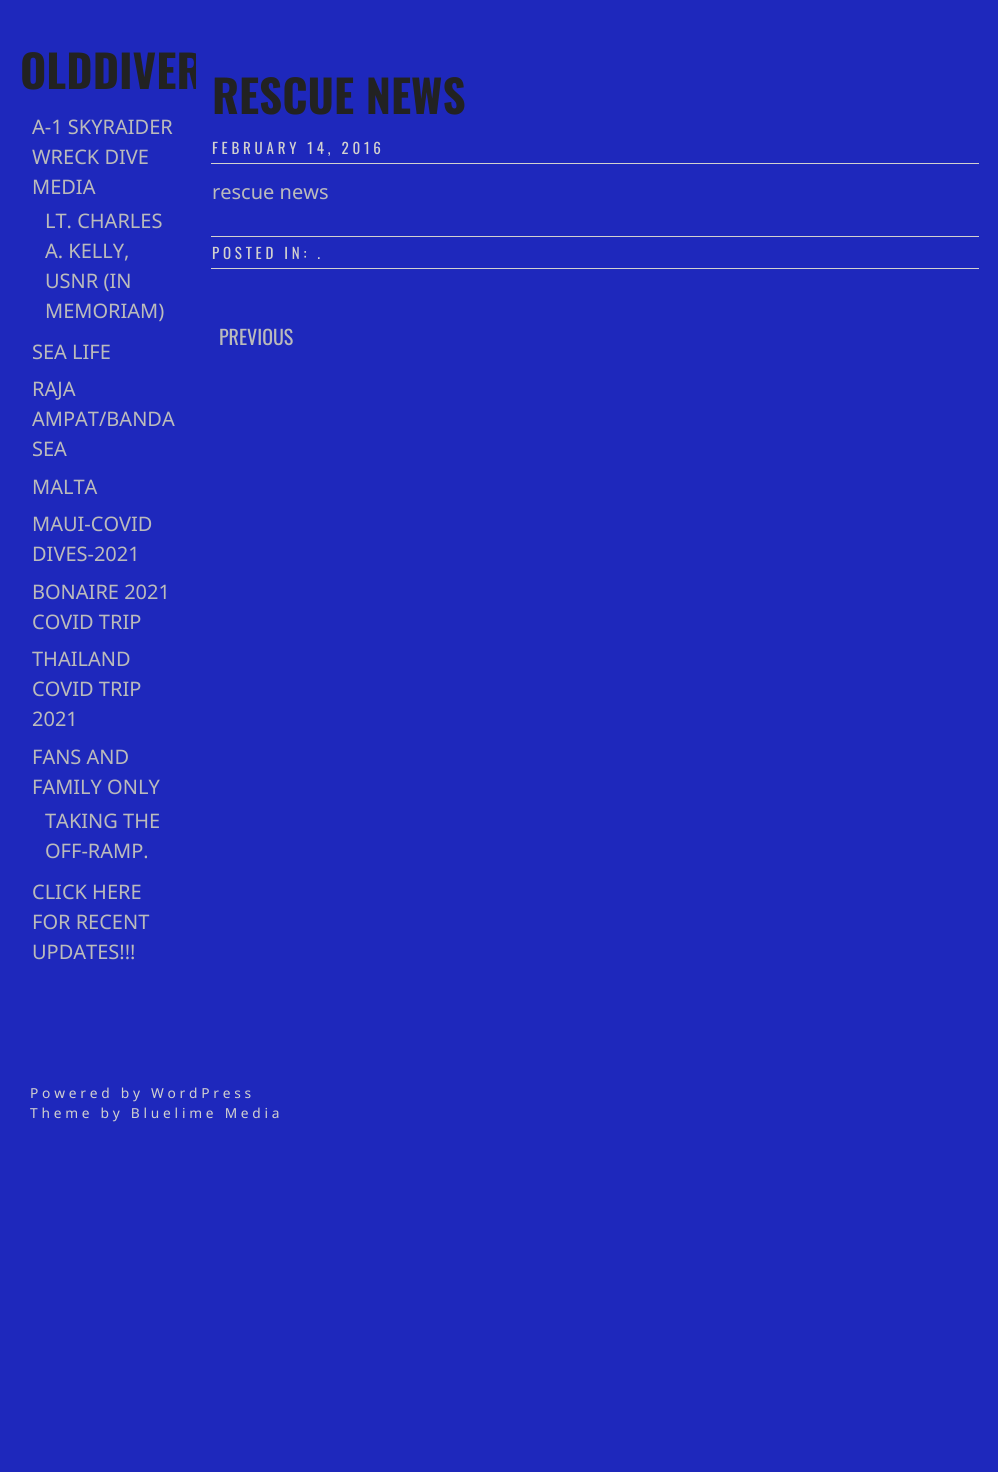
#include <cairo.h>
#include <math.h>
#include <stddef.h>

static cairo_t *c;
static void C(unsigned color){cairo_set_source_rgb(c, (color >> 16) / 255.0, (color >> 8 & 255) / 255.0, (color & 255) / 255.0);}
static void F(const char *family, double size, int italic, int bold){cairo_select_font_face(c, family, italic ? CAIRO_FONT_SLANT_ITALIC : CAIRO_FONT_SLANT_NORMAL,bold ? CAIRO_FONT_WEIGHT_BOLD : CAIRO_FONT_WEIGHT_NORMAL);cairo_set_font_size(c, size);}
static void T(double x, double y, const char *s){cairo_move_to(c, x, y);cairo_show_text(c, s);}
static void L(double x, double y, const char *s, double letter, double word){cairo_move_to(c, x, y);while (*s) {char ch[5] = {0};int n = 0;do ch[n++] = *s++; while ((*s & 0xC0) == 0x80);cairo_show_text(c, ch);cairo_rel_move_to(c, letter + word * (*ch == ' '), 0);}}
static void R(double x, double y, double w, double h){cairo_rectangle(c, x, y, w, h);cairo_fill(c);}
int main(void) {
cairo_surface_t *surface = cairo_image_surface_create(CAIRO_FORMAT_RGB24, 998, 1472);
c = cairo_create(surface);
cairo_font_options_t *options = cairo_font_options_create();
cairo_font_options_set_hint_metrics(options, CAIRO_HINT_METRICS_OFF);
cairo_font_options_set_hint_style(options, CAIRO_HINT_STYLE_NONE);
cairo_set_font_options(c, options);
cairo_set_miter_limit(c, 4);
C(0x1e28bc);
cairo_paint(c);
cairo_save(c);
cairo_rectangle(c,20,13,176,990);
cairo_clip(c);
F("Oswald",45,0,1);
C(0x222222);
T(20,89,"OLDDIVER");
cairo_restore(c);
F("Noto Sans",20,0,0);
C(0xbbbbbb);
T(32,134,"A-1 SKYRAIDER");
T(32,164,"WRECK DIVE");
T(32,194,"MEDIA");
T(45,228,"LT. CHARLES");
T(45,258,"A. KELLY,");
T(45,288,"USNR (IN");
T(45,318,"MEMORIAM)");
T(32,359,"SEA LIFE");
T(32,396,"RAJA");
T(32,426,"AMPAT/BANDA");
T(32,456,"SEA");
T(32,494,"MALTA");
T(32,531,"MAUI-COVID");
T(32,561,"DIVES-2021");
T(32,599,"BONAIRE 2021");
T(32,629,"COVID TRIP");
T(32,666,"THAILAND");
T(32,696,"COVID TRIP");
T(32,726,"2021");
T(32,764,"FANS AND");
T(32,794,"FAMILY ONLY");
T(45,828,"TAKING THE");
T(45,858,"OFF-RAMP.");
T(32,899,"CLICK HERE");
T(32,929,"FOR RECENT");
T(32,959,"UPDATES!!!");
F("Oswald",45,0,1);
C(0x222222);
T(212,114,"RESCUE NEWS");
C(0xd2d1cf);
R(211,163,768,1);
F("Oswald",15,0,0);
L(212,154,"FEBRUARY 14, 2016",3.75,0);
F("Noto Sans",20,0,0);
C(0xbbbbbb);
T(212,199,"rescue news");
C(0xd2d1cf);
R(211,236,768,1);
R(211,268,768,1);
F("Oswald",15,0,0);
L(212,259,"POSTED IN: .",3.75,0);
F("Oswald",20,0,0);
C(0xbbbbbb);
T(219,345,"PREVIOUS");
F("Noto Sans",13.75,0,0);
C(0xd2d1cf);
L(30,1098,"Powered by WordPress",3.75,0);
L(30,1118,"Theme by Bluelime Media",3.75,0);
cairo_surface_write_to_png(surface, "o.png");
cairo_font_options_destroy(options);
cairo_destroy(c);
cairo_surface_destroy(surface);
return 0;
}
